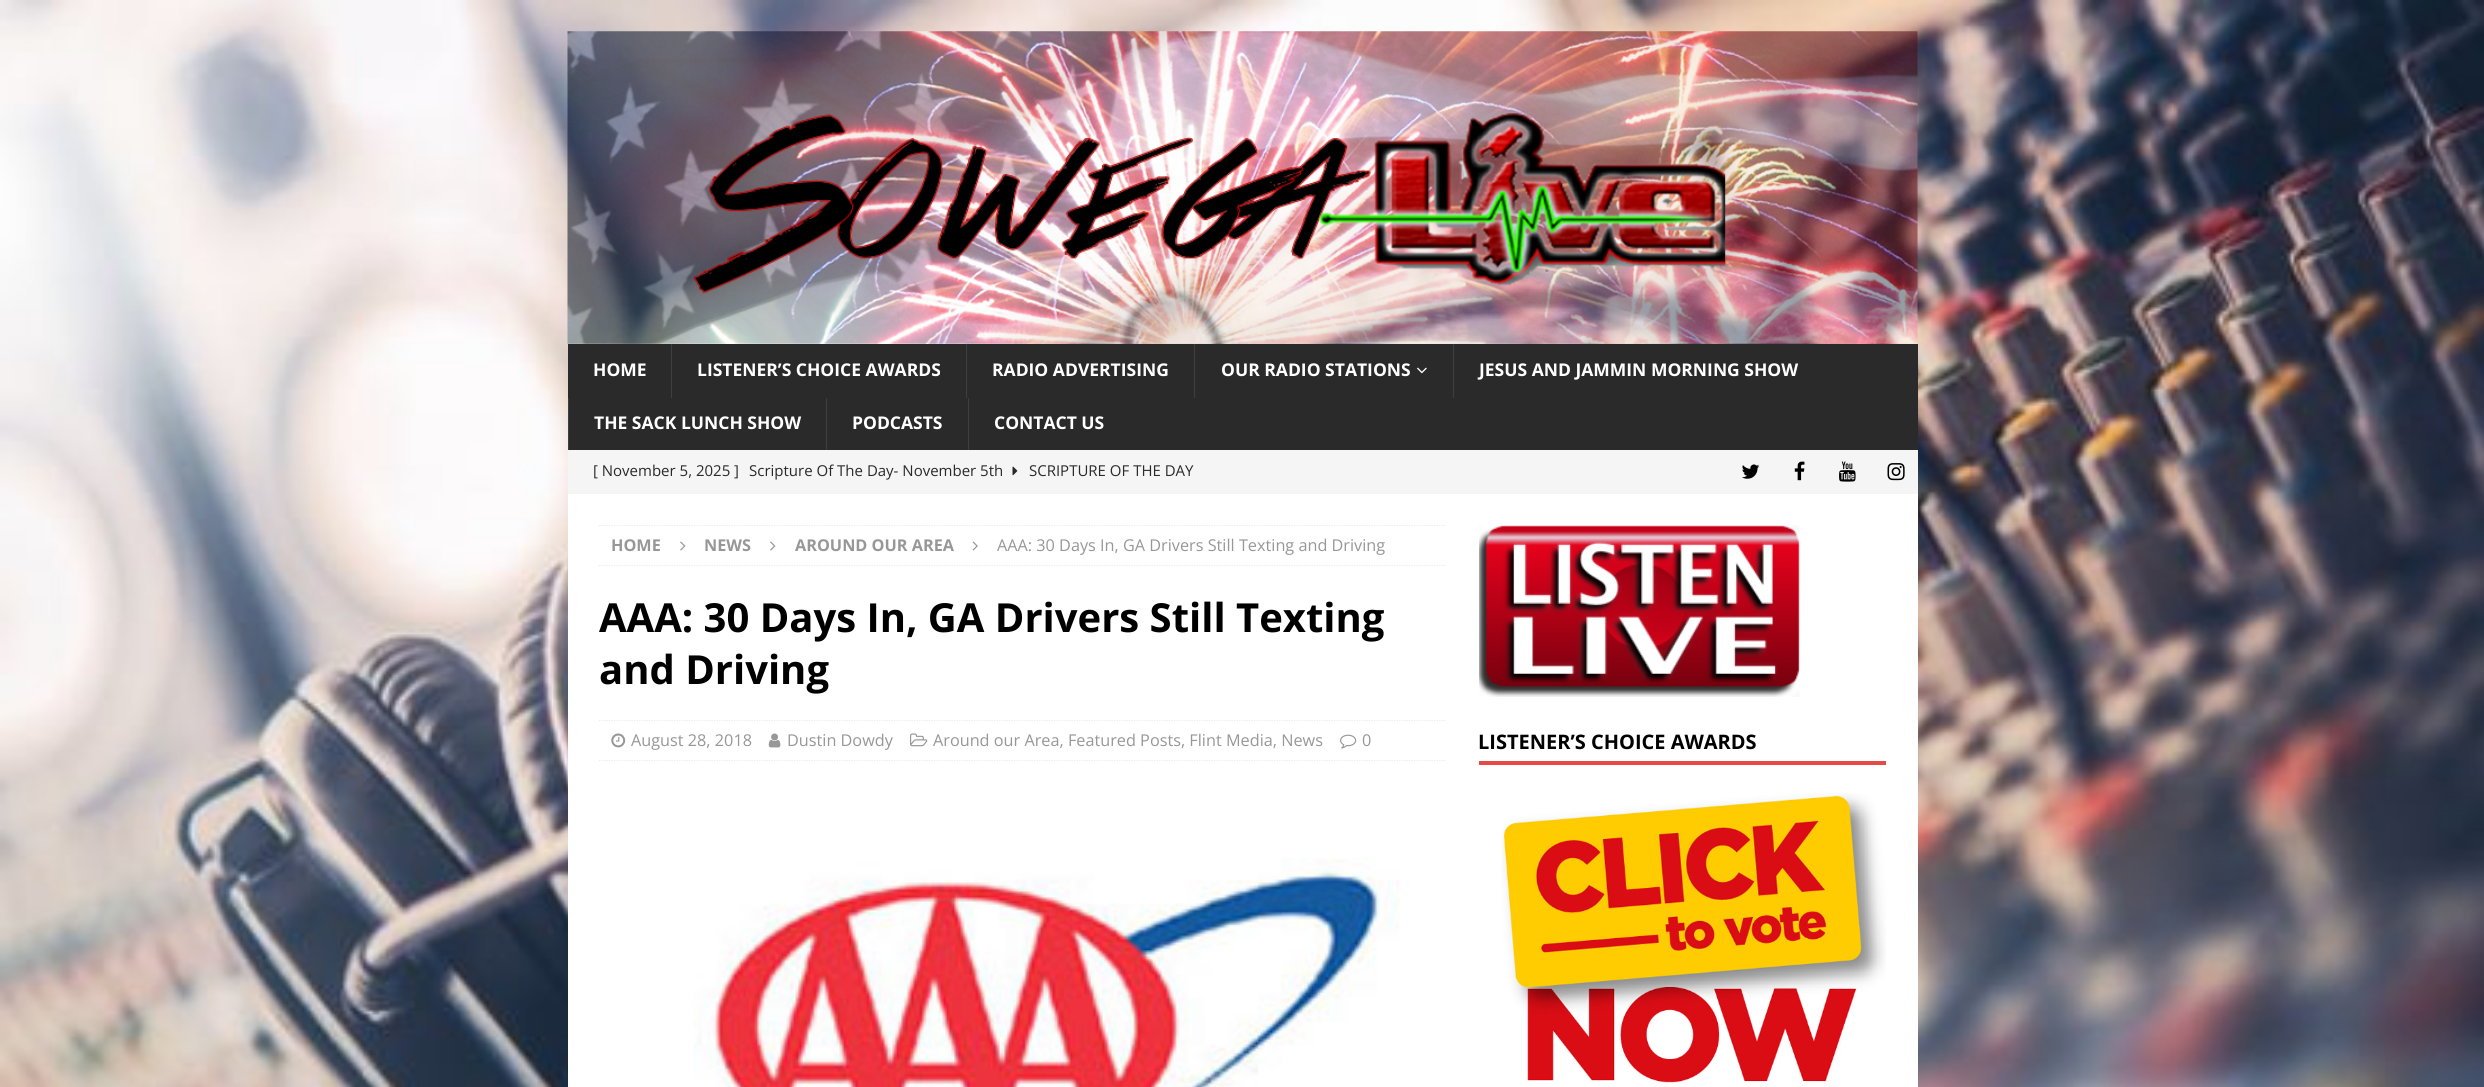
#include <cairo.h>
#include <math.h>
#include <stddef.h>

static cairo_t *c;
static void C(unsigned color){cairo_set_source_rgb(c, (color >> 16) / 255.0, (color >> 8 & 255) / 255.0, (color & 255) / 255.0);}
static void F(const char *family, double size, int italic, int bold){cairo_select_font_face(c, family, italic ? CAIRO_FONT_SLANT_ITALIC : CAIRO_FONT_SLANT_NORMAL,bold ? CAIRO_FONT_WEIGHT_BOLD : CAIRO_FONT_WEIGHT_NORMAL);cairo_set_font_size(c, size);}
static void T(double x, double y, const char *s){cairo_move_to(c, x, y);cairo_show_text(c, s);}
static void R(double x, double y, double w, double h){cairo_rectangle(c, x, y, w, h);cairo_fill(c);}
static void I(const char *path, double x, double y, double w, double h){cairo_surface_t *image = cairo_image_surface_create_from_png(path);cairo_save(c);cairo_set_source_surface(c, image, x, y);cairo_rectangle(c, x, y, w, h);cairo_fill(c);cairo_restore(c);cairo_surface_destroy(image);}
int main(void) {
cairo_surface_t *surface = cairo_image_surface_create(CAIRO_FORMAT_RGB24, 2484, 1087);
c = cairo_create(surface);
cairo_font_options_t *options = cairo_font_options_create();
cairo_font_options_set_hint_metrics(options, CAIRO_HINT_METRICS_OFF);
cairo_font_options_set_hint_style(options, CAIRO_HINT_STYLE_NONE);
cairo_set_font_options(c, options);
cairo_set_miter_limit(c, 4);
C(0xffffff);
cairo_paint(c);
I("1.png",0,0,2484,1087);
I("2.png",567,31,1351,313);
C(0x2a2a2a);
R(568,344,1350,106);
F("Open Sans",17.5,0,1);
C(0xffffff);
T(593,376,"HOME");
C(0x3f3f3f);
R(671,344,1,54);
C(0xffffff);
T(697,376,"LISTENER’S CHOICE AWARDS");
C(0x3f3f3f);
R(966,344,1,54);
C(0xffffff);
T(992,376,"RADIO ADVERTISING");
C(0x3f3f3f);
R(1194,344,1,54);
C(0xffffff);
T(1221,376,"OUR RADIO STATIONS");
I("3.png",1417,367,10,7);
C(0x3f3f3f);
R(1453,344,1,54);
C(0xffffff);
T(1479,376,"JESUS AND JAMMIN MORNING SHOW");
C(0x3f3f3f);
R(568,398,1,52);
C(0xffffff);
T(594,429,"THE SACK LUNCH SHOW");
C(0x3f3f3f);
R(826,398,1,52);
C(0xffffff);
T(852,429,"PODCASTS");
C(0x3f3f3f);
R(968,398,1,52);
C(0xffffff);
T(994,429,"CONTACT US");
C(0xf5f5f5);
R(568,450,1350,44);
F("Open Sans",15,0,0);
C(0x2a2a2a);
T(593,476,"[ November 5, 2025 ]");
T(749,476,"Scripture Of The Day- November 5th");
I("4.png",1012,466,6,10);
T(1029,476,"SCRIPTURE OF THE DAY");
I("5.png",1742,464,18,15);
I("6.png",1794,461,11,20);
I("7.png",1839,461,17,21);
I("8.png",1887,463,18,18);
C(0xffffff);
R(568,494,1350,593);
cairo_save(c);
cairo_rectangle(c,599,525,847,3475);
cairo_clip(c);
cairo_new_path(c);
cairo_move_to(c,599,525.5);
cairo_line_to(c,1446,525.5);
C(0xebebeb);
cairo_set_line_width(c,1.2);
cairo_set_dash(c,(double[]){1.25,1.25},2,0);
cairo_stroke(c);
cairo_restore(c);
cairo_new_path(c);
cairo_move_to(c,599,565.5);
cairo_line_to(c,1446,565.5);
C(0xebebeb);
cairo_set_line_width(c,1.2);
cairo_set_dash(c,(double[]){1.25,1.25},2,0);
cairo_stroke(c);
F("Open Sans",16.25,0,1);
C(0x979797);
T(611,551,"HOME");
I("9.png",680,541,6,10);
T(704,551,"NEWS");
I("9.png",770,541,6,10);
T(795,551,"AROUND OUR AREA");
I("10.png",972,541,6,10);
F("Open Sans",16.25,0,0);
T(997,551,"AAA: 30 Days In, GA Drivers Still Texting and Driving");
F("Open Sans",40,0,1);
C(0x000000);
T(599,632,"AAA: 30 Days In, GA Drivers Still Texting");
T(599,684,"and Driving");
cairo_new_path(c);
cairo_move_to(c,599,720.5);
cairo_line_to(c,1446,720.5);
C(0xebebeb);
cairo_stroke(c);
cairo_new_path(c);
cairo_move_to(c,599,760.5);
cairo_line_to(c,1446,760.5);
cairo_stroke(c);
I("11.png",611,733,15,15);
F("Open Sans",16.25,0,0);
C(0x979797);
T(631,746,"August 28, 2018");
I("12.png",768,733,13,15);
T(787,746,"Dustin Dowdy");
I("13.png",910,733,18,14);
T(933,746,"Around our Area, Featured Posts, Flint Media, News");
I("14.png",1340,734,17,15);
T(1362,746,"0");
I("15.png",693,857,707,230);
I("16.png",1479,525,321,172);
C(0xe64946);
R(1479,761,407,4);
F("Open Sans",20,0,1);
C(0x000000);
T(1478,749,"LISTENER’S CHOICE AWARDS");
I("17.png",1501,793,385,290);
cairo_surface_write_to_png(surface, "o.png");
cairo_font_options_destroy(options);
cairo_destroy(c);
cairo_surface_destroy(surface);
return 0;
}
